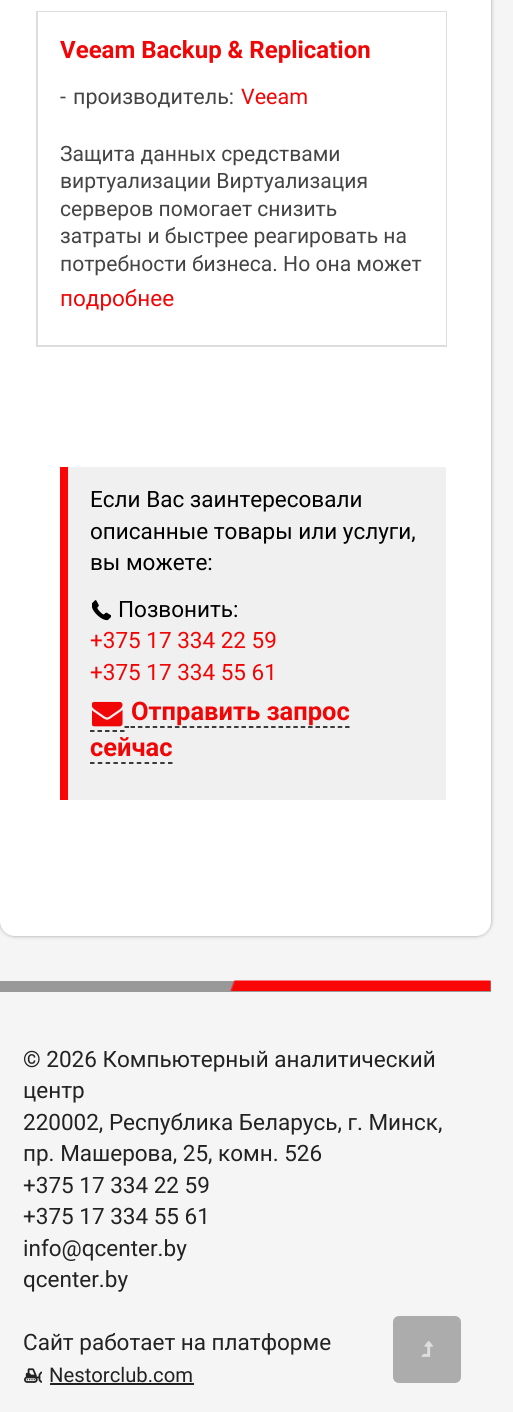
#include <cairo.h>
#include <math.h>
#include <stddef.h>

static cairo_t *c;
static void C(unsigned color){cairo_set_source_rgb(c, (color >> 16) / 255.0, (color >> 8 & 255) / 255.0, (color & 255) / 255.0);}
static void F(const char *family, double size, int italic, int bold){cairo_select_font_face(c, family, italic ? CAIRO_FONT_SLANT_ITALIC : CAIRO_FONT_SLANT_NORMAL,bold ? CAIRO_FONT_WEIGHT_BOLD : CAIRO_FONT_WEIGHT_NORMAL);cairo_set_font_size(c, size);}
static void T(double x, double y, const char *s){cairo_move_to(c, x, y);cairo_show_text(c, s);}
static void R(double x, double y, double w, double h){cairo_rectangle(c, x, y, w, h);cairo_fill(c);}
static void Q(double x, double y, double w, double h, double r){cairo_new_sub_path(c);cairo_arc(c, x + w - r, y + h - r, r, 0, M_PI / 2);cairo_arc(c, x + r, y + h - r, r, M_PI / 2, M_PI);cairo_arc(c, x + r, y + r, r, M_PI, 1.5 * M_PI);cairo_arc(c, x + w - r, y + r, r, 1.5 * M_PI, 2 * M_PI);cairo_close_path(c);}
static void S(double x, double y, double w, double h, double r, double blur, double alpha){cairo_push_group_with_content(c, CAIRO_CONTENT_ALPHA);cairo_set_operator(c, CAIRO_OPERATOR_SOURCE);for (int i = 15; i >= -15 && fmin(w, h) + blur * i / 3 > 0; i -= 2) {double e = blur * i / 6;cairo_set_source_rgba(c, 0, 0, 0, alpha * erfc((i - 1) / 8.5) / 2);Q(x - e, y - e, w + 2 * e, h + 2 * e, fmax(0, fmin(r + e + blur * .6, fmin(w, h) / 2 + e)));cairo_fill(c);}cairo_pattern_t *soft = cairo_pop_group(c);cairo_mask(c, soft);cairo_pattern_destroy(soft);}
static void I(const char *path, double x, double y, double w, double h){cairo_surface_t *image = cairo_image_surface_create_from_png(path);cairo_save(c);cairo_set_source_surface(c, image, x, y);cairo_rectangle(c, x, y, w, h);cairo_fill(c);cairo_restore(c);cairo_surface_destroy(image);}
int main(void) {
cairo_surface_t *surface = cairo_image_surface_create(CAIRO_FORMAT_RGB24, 513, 1412);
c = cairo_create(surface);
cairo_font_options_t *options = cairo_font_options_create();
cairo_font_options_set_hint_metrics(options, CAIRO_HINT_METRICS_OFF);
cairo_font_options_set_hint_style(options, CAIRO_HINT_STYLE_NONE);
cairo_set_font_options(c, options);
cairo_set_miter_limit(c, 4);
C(0xf5f5f6);
cairo_paint(c);
C(0xa0a0a0);
S(0,-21,491,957,15,2,1);
C(0xffffff);
Q(0,-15,491,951,15);
cairo_fill(c);
cairo_rectangle(c,37,12,409,334);
C(0xdddddd);
cairo_stroke(c);
C(0xffffff);
R(38,12,408,333);
F("Roboto",24,0,1);
C(0xf00606);
T(60,58,"Veeam Backup & Replication");
F("Roboto",21.5,0,0);
C(0x444444);
T(60,104,"-");
T(73,104,"производитель:");
C(0xf00606);
T(241,104,"Veeam");
F("Roboto",21.1,0,0);
C(0x444444);
T(60,161,"Защита данных средствами");
T(60,188,"виртуализации Виртуализация");
T(60,216,"серверов помогает снизить");
T(60,243,"затраты и быстрее реагировать на");
T(60,271,"потребности бизнеса. Но она может");
F("Roboto",22.5,0,0);
C(0xf00606);
T(60,306,"подробнее");
C(0xf0f0f0);
R(68,467,378,333);
C(0xfa0606);
R(60,467,8,333);
C(0x000000);
T(90,507,"Если Вас заинтересовали");
T(90,539,"описанные товары или услуги,");
T(90,570,"вы можете:");
I("1.png",92,600,19,21);
T(118,617,"Позвонить:");
C(0xf00606);
T(90,648,"+375 17 334 22 59");
T(90,680,"+375 17 334 55 61");
cairo_new_path(c);
cairo_move_to(c,90,731);
cairo_line_to(c,124.5,731);
C(0x000000);
cairo_set_line_width(c,1.5);
cairo_set_dash(c,(double[]){4.5,3},2,0);
cairo_stroke(c);
cairo_new_path(c);
cairo_move_to(c,124.5,727);
cairo_line_to(c,129,727);
cairo_set_dash(c,NULL,0,0);
cairo_stroke(c);
cairo_new_path(c);
cairo_move_to(c,130.5,727);
cairo_line_to(c,349.5,727);
cairo_set_dash(c,(double[]){4.5,2.9},2,0);
cairo_stroke(c);
cairo_new_path(c);
cairo_move_to(c,90,763);
cairo_line_to(c,172.5,763);
cairo_set_dash(c,(double[]){4.5,3.3},2,0);
cairo_stroke(c);
I("2.png",92,701,31,26);
F("Roboto",25.5,0,1);
C(0xf00606);
T(131,720,"Отправить запрос");
T(90,756,"сейчас");
C(0x999999);
R(0,981,491,11);
I("3.png",229,980,262,11);
F("Roboto",22.5,0,0);
C(0x222222);
T(23,1067,"© 2026 Компьютерный аналитический");
T(23,1098,"центр");
T(23,1130,"220002, Республика Беларусь, г. Минск,");
T(23,1161,"пр. Машерова, 25, комн. 526");
T(23,1193,"+375 17 334 22 59");
T(23,1224,"+375 17 334 55 61");
T(23,1256,"info@qcenter.by");
T(23,1287,"qcenter.by");
T(23,1350,"Сайт работает на платформе");
I("4.png",24,1368,18,15);
F("Roboto",20.25,0,0);
T(49,1382,"Nestorclub.com");
R(50,1383,144,2);
C(0xacacac);
Q(393,1316,68,67,6);
cairo_fill(c);
I("5.png",421,1341,12,16);
cairo_surface_write_to_png(surface, "o.png");
cairo_font_options_destroy(options);
cairo_destroy(c);
cairo_surface_destroy(surface);
return 0;
}
